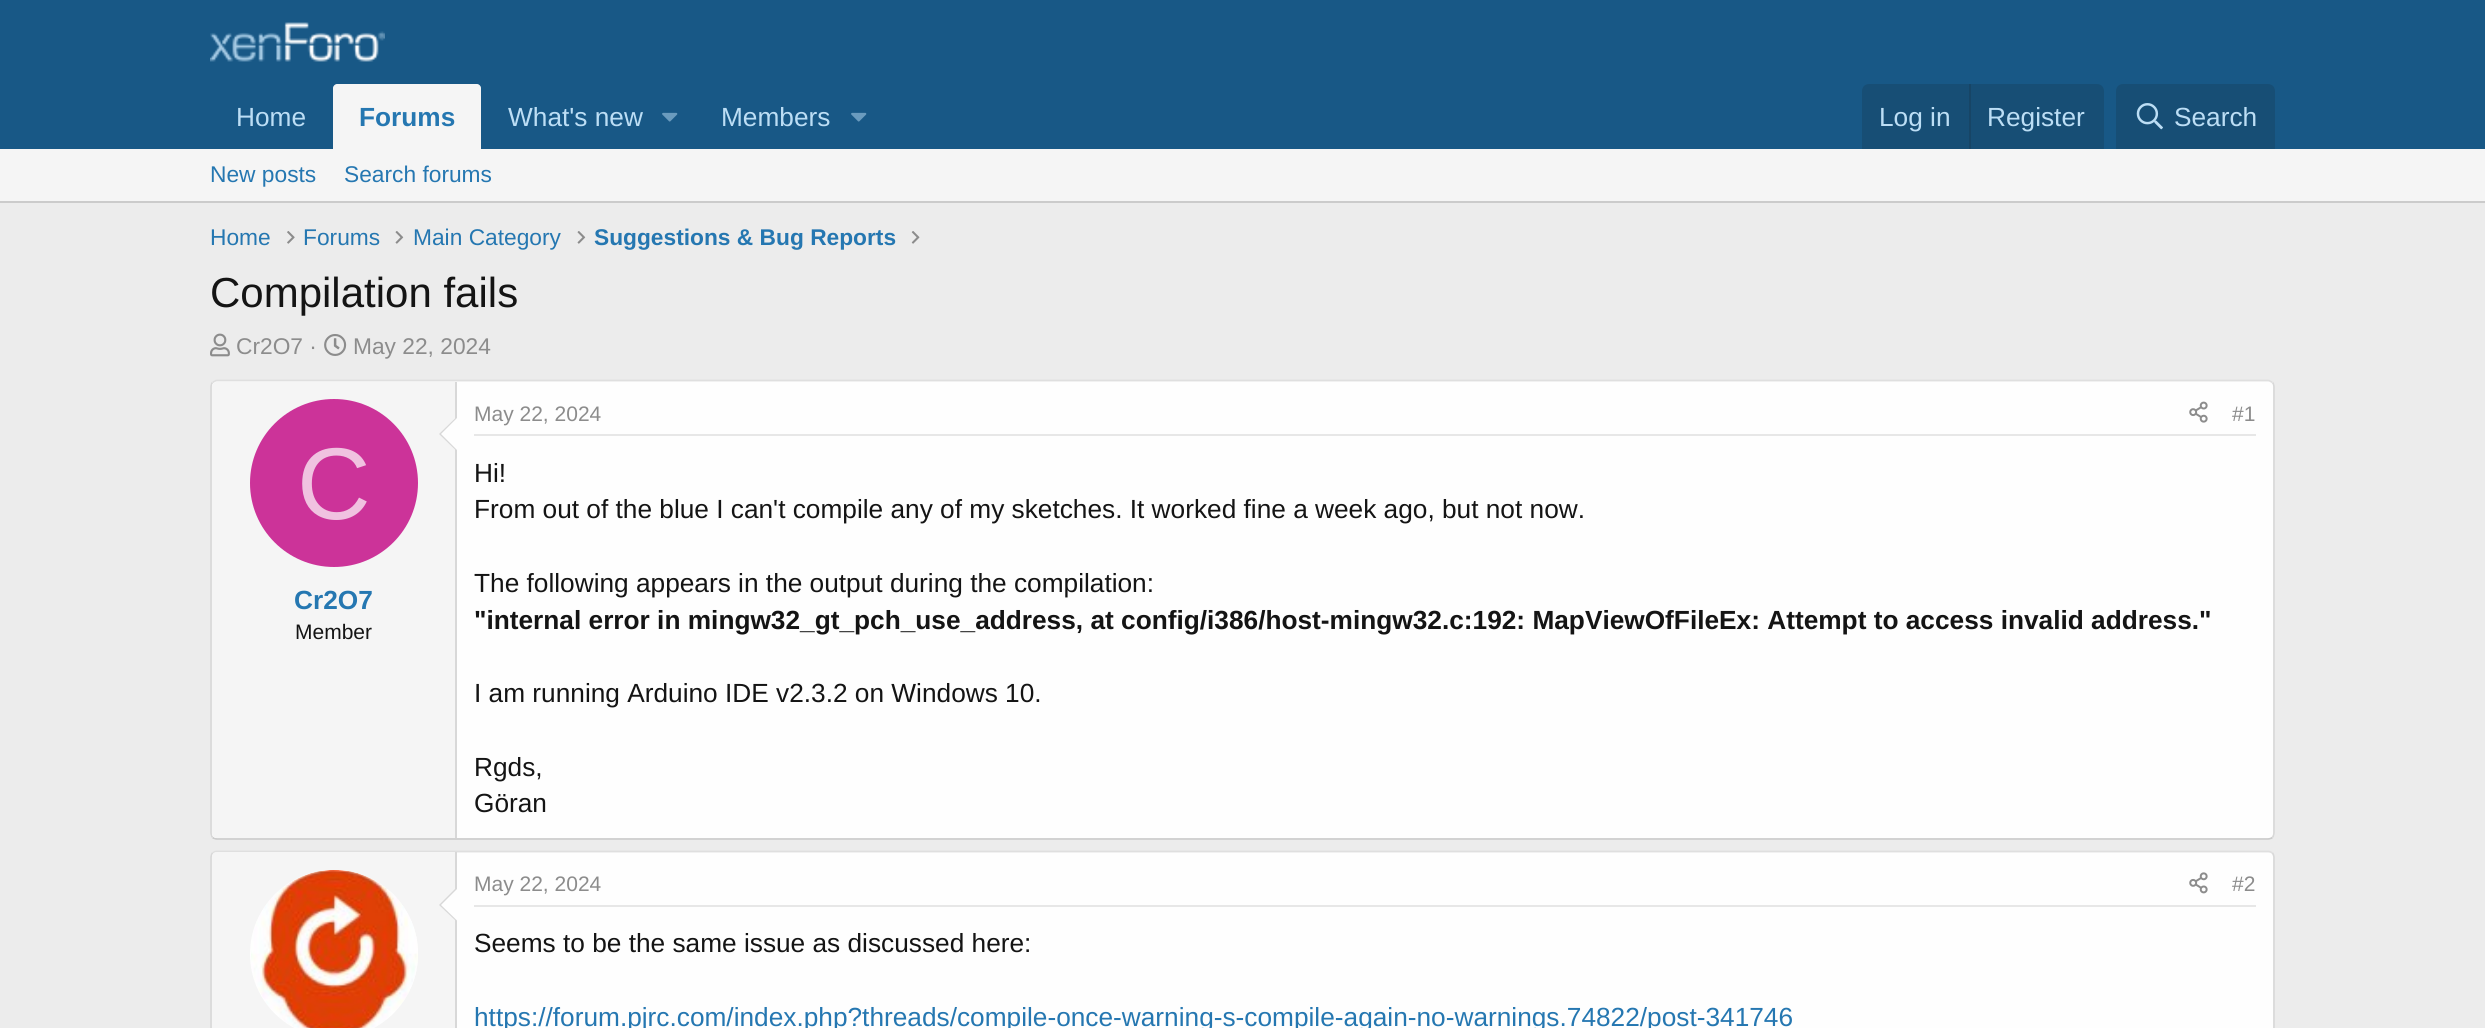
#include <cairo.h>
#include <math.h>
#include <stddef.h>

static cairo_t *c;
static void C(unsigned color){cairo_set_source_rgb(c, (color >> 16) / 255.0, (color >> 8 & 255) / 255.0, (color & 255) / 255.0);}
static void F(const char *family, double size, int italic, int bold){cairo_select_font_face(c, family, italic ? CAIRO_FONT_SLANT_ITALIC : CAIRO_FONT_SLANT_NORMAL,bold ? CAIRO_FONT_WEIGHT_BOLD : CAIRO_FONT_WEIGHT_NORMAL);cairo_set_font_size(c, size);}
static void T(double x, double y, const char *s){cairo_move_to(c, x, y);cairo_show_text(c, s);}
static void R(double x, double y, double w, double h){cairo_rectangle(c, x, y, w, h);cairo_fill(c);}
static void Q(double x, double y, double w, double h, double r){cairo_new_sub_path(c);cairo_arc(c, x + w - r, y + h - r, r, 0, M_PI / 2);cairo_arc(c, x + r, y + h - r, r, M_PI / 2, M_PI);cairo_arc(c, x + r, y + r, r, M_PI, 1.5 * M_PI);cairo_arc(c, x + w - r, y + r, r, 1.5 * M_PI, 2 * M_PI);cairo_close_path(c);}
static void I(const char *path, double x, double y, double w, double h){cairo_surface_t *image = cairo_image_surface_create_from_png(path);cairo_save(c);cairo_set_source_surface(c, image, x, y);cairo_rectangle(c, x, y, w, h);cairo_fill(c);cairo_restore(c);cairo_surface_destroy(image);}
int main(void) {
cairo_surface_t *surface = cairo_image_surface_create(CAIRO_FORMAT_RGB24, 2485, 1028);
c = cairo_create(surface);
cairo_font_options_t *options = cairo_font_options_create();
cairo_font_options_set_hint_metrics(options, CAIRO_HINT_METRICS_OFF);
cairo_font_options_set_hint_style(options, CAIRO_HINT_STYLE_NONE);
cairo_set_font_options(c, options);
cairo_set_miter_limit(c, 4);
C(0xececec);
cairo_paint(c);
C(0x185886);
R(0,0,2485,149);
I("1.png",210,22,175,40);
F("Liberation Sans",26.25,0,0);
C(0xbcdef5);
T(236,126,"Home");
C(0xf5f5f5);
cairo_new_path(c);
cairo_move_to(c,337,84);
cairo_line_to(c,477,84);
cairo_curve_to(c,479,84,481,86,481,88);
cairo_line_to(c,481,149);
cairo_line_to(c,333,149);
cairo_line_to(c,333,88);
cairo_curve_to(c,333,86,335,84,337,84);
cairo_close_path(c);
cairo_fill(c);
F("Liberation Sans",26.25,0,1);
C(0x2577b1);
T(359,126,"Forums");
F("Liberation Sans",26.25,0,0);
C(0xbcdef5);
T(508,126,"What's new");
I("2.png",662,112,16,10);
T(721,126,"Members");
I("2.png",851,112,16,10);
C(0x174e75);
cairo_new_path(c);
cairo_move_to(c,1869,84);
cairo_line_to(c,2097,84);
cairo_curve_to(c,2101,84,2104,87,2104,91);
cairo_line_to(c,2104,149);
cairo_line_to(c,1862,149);
cairo_line_to(c,1862,91);
cairo_curve_to(c,1862,87,1865,84,1869,84);
cairo_close_path(c);
cairo_fill(c);
C(0xbcdef5);
T(1879,126,"Log in");
C(0x174566);
R(1969,84,2,65);
C(0xbcdef5);
T(1987,126,"Register");
C(0x174e75);
cairo_new_path(c);
cairo_move_to(c,2123,84);
cairo_line_to(c,2268,84);
cairo_curve_to(c,2272,84,2275,87,2275,91);
cairo_line_to(c,2275,149);
cairo_line_to(c,2116,149);
cairo_line_to(c,2116,91);
cairo_curve_to(c,2116,87,2119,84,2123,84);
cairo_close_path(c);
cairo_fill(c);
I("3.png",2136,103,27,27);
C(0xbcdef5);
T(2174,126,"Search");
C(0xf5f5f5);
R(0,149,2485,52);
C(0xcbcbcb);
R(0,201,2485,2);
F("Liberation Sans",22.75,0,0);
C(0x2577b1);
T(210,182,"New posts");
T(344,182,"Search forums");
T(210,245,"Home");
I("4.png",287,231,8,13);
T(303,245,"Forums");
I("5.png",395,231,9,13);
T(413,245,"Main Category");
I("5.png",577,231,9,13);
F("Liberation Sans",22.75,0,1);
T(594,245,"Suggestions & Bug Reports");
I("6.png",911,231,9,13);
F("Liberation Sans",42,0,0);
C(0x141414);
T(210,307,"Compilation fails");
I("7.png",210,333,20,24);
F("Liberation Sans",22.75,0,0);
C(0x8c8c8c);
T(236,354,"Cr2O7 ·");
I("8.png",324,334,23,22);
T(353,354,"May 22, 2024");
C(0xfefefe);
Q(210,380,2065,460,7);
cairo_fill(c);
cairo_new_path(c);
cairo_move_to(c,212.5,382.5);
cairo_curve_to(c,214,381.5,215.5,380.5,217,380.5);
cairo_line_to(c,2268,380.5);
cairo_curve_to(c,2269.5,380.5,2271,381.5,2272.5,382.5);
C(0xdfdfdf);
cairo_set_line_width(c,1.8);
cairo_stroke(c);
cairo_new_path(c);
cairo_move_to(c,2272.5,382.5);
cairo_curve_to(c,2273.5,383.5,2274,385,2274,387);
cairo_line_to(c,2274,833);
cairo_curve_to(c,2274,834.5,2273.5,836,2272.5,837.5);
C(0xd8d8d8);
cairo_stroke(c);
cairo_new_path(c);
cairo_move_to(c,2272.5,837.5);
cairo_curve_to(c,2271,838.5,2269.5,839,2268,839);
cairo_line_to(c,217,839);
cairo_curve_to(c,215.5,839,214,838.5,212.5,837.5);
C(0xcbcbcb);
cairo_stroke(c);
cairo_new_path(c);
cairo_move_to(c,212.5,837.5);
cairo_curve_to(c,211.5,836,211,834.5,211,833);
cairo_line_to(c,211,387);
cairo_curve_to(c,211,385,211.5,383.5,212.5,382.5);
C(0xd8d8d8);
cairo_stroke(c);
C(0xf5f5f5);
cairo_new_path(c);
cairo_move_to(c,217,382);
cairo_line_to(c,457,382);
cairo_line_to(c,457,838);
cairo_line_to(c,217,838);
cairo_curve_to(c,214,838,212,836,212,833);
cairo_line_to(c,212,387);
cairo_curve_to(c,212,384,214,382,217,382);
cairo_close_path(c);
cairo_fill(c);
C(0xd8d8d8);
R(455,382,2,456);
cairo_new_path(c);
cairo_move_to(c,457,416.5);
cairo_line_to(c,457,451.5);
cairo_line_to(c,439,434);
cairo_close_path(c);
cairo_fill(c);
C(0xfefefe);
cairo_new_path(c);
cairo_move_to(c,457,418);
cairo_line_to(c,457,450);
cairo_line_to(c,441,434);
cairo_close_path(c);
cairo_fill(c);
C(0xcc3399);
cairo_arc(c,334,483,84,0,2 * M_PI);
cairo_fill(c);
F("Liberation Sans",102,0,0);
C(0xf0c2e0);
T(297,519,"C");
F("Liberation Sans",26.25,0,1);
C(0x2577b1);
T(294,609,"Cr2O7");
F("Liberation Sans",21,0,0);
C(0x141414);
T(295,639,"Member");
C(0xe7e7e7);
R(474,434,1782,2);
C(0x8c8c8c);
T(474,421,"May 22, 2024");
I("9.png",2189,401,19,22);
T(2232,421,"#1");
F("Liberation Sans",26.25,0,0);
C(0x141414);
T(474,482,"Hi!");
T(474,518,"From out of the blue I can't compile any of my sketches. It worked fine a week ago, but not now.");
T(474,592,"The following appears in the output during the compilation:");
F("Liberation Sans",26.25,0,1);
T(474,629,"\"internal error in mingw32_gt_pch_use_address, at config/i386/host-mingw32.c:192: MapViewOfFileEx: Attempt to access invalid address.\"");
F("Liberation Sans",26.25,0,0);
T(474,702,"I am running Arduino IDE v2.3.2 on Windows 10.");
T(474,776,"Rgds,");
T(474,812,"Göran");
C(0xfefefe);
Q(210,851,2065,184,7);
cairo_fill(c);
cairo_new_path(c);
cairo_move_to(c,212.5,853);
cairo_curve_to(c,214,852,215.5,851.5,217,851.5);
cairo_line_to(c,2268,851.5);
cairo_curve_to(c,2269.5,851.5,2271,852,2272.5,853);
C(0xdfdfdf);
cairo_stroke(c);
cairo_new_path(c);
cairo_move_to(c,2272.5,853);
cairo_curve_to(c,2273.5,854.5,2274,856,2274,857.5);
cairo_line_to(c,2274,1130.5);
cairo_curve_to(c,2274,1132,2273.5,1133.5,2272.5,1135);
C(0xd8d8d8);
cairo_stroke(c);
cairo_new_path(c);
cairo_move_to(c,212.5,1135);
cairo_curve_to(c,211.5,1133.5,211,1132,211,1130.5);
cairo_line_to(c,211,857.5);
cairo_curve_to(c,211,856,211.5,854.5,212.5,853);
cairo_stroke(c);
C(0xf5f5f5);
cairo_new_path(c);
cairo_move_to(c,217,852);
cairo_line_to(c,457,852);
cairo_line_to(c,457,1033);
cairo_line_to(c,217,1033);
cairo_curve_to(c,214,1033,212,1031,212,1028);
cairo_line_to(c,212,857);
cairo_curve_to(c,212,854,214,852,217,852);
cairo_close_path(c);
cairo_fill(c);
C(0xd8d8d8);
R(455,852,2,176);
C(0xfefefe);
cairo_arc(c,334,954,84,0,2 * M_PI);
cairo_fill(c);
I("10.png",251,870,167,158);
C(0xd8d8d8);
cairo_new_path(c);
cairo_move_to(c,457,887);
cairo_line_to(c,457,922);
cairo_line_to(c,439,905);
cairo_close_path(c);
cairo_fill(c);
C(0xfefefe);
cairo_new_path(c);
cairo_move_to(c,457,889);
cairo_line_to(c,457,920.5);
cairo_line_to(c,441,905);
cairo_close_path(c);
cairo_fill(c);
C(0xe7e7e7);
R(474,905,1782,2);
F("Liberation Sans",21,0,0);
C(0x8c8c8c);
T(474,891,"May 22, 2024");
I("11.png",2189,872,19,22);
T(2232,891,"#2");
F("Liberation Sans",26.25,0,0);
C(0x141414);
T(474,952,"Seems to be the same issue as discussed here:");
C(0x2577b1);
T(474,1026,"https://forum.pjrc.com/index.php?threads/compile-once-warning-s-compile-again-no-warnings.74822/post-341746");
cairo_surface_write_to_png(surface, "o.png");
cairo_font_options_destroy(options);
cairo_destroy(c);
cairo_surface_destroy(surface);
return 0;
}
